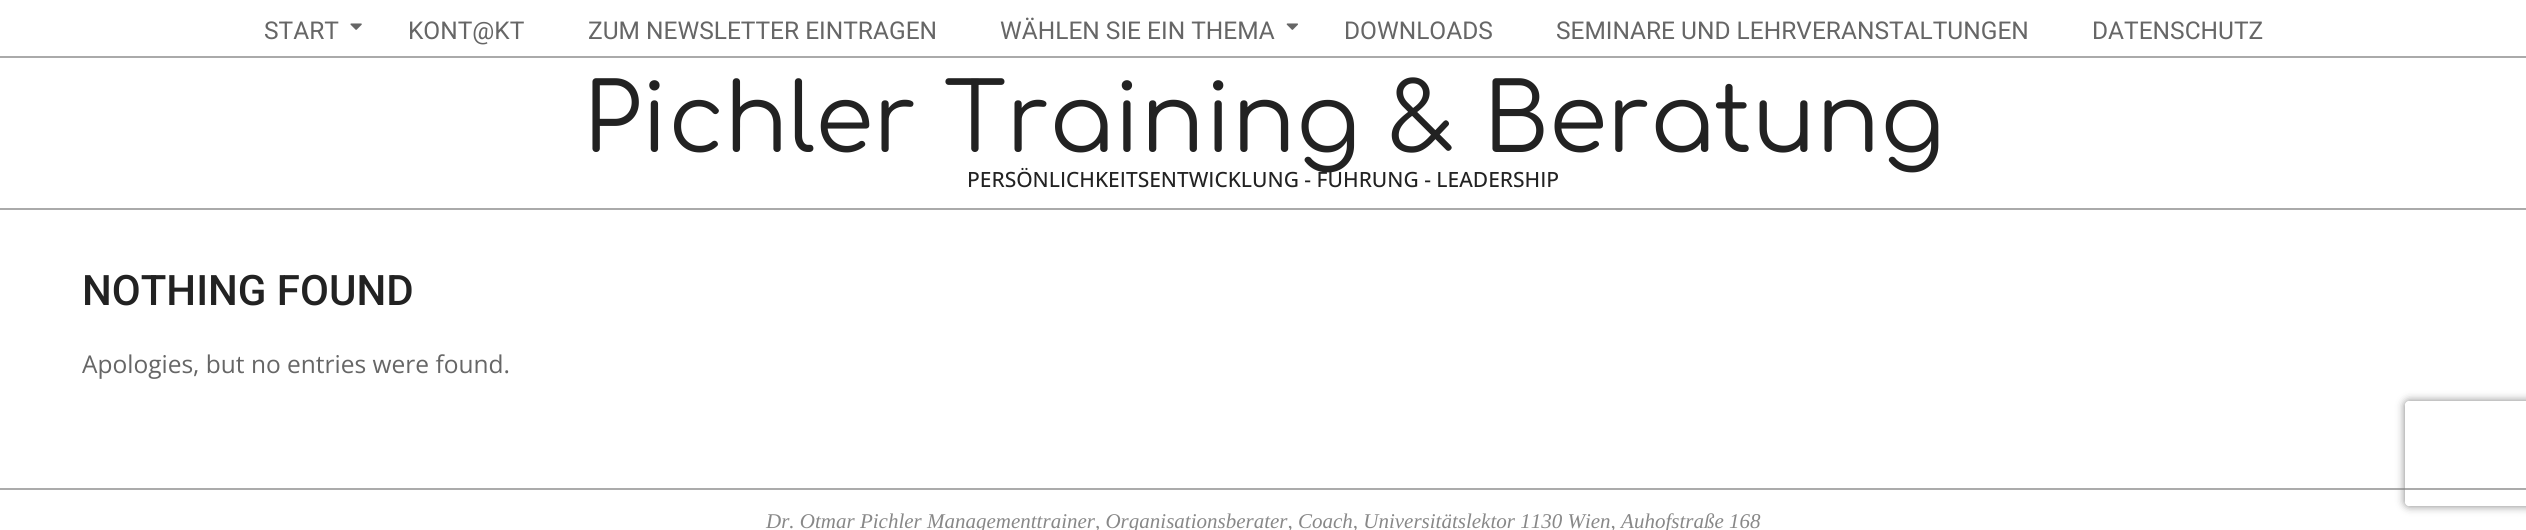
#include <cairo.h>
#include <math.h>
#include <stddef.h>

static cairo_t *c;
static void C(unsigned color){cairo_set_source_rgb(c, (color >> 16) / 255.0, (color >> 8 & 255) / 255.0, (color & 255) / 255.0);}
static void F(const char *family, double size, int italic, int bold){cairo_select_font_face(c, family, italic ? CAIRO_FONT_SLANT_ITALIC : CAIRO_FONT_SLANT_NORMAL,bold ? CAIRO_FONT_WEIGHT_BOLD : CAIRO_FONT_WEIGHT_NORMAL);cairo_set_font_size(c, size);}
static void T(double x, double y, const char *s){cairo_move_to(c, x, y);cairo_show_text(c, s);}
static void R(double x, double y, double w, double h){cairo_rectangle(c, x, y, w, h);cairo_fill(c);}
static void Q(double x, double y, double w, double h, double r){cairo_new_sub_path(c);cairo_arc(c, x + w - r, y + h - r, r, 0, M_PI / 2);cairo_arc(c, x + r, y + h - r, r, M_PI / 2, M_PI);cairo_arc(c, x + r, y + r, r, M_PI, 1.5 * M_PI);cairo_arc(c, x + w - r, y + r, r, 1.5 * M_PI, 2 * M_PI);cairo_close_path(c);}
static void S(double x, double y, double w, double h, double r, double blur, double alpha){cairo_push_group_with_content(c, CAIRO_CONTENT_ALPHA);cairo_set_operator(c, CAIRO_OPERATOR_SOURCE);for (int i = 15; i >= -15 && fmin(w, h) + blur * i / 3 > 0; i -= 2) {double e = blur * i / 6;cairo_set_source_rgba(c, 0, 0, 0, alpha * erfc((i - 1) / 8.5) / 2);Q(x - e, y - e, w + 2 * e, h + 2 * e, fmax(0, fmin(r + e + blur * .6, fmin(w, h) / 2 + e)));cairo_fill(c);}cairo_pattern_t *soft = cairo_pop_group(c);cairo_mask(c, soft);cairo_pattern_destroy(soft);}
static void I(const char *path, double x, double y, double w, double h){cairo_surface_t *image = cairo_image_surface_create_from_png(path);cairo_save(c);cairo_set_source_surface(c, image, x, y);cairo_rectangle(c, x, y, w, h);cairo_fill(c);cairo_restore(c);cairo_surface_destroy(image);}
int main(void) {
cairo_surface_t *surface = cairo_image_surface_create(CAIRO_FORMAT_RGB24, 2526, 530);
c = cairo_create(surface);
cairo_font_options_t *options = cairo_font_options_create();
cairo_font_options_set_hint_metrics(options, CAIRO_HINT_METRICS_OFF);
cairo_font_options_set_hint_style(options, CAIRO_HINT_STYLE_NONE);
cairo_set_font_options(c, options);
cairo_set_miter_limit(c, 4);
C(0xffffff);
cairo_paint(c);
C(0xaaaaaa);
R(0,56,2526,2);
F("Roboto",24.5,0,0);
C(0x666666);
T(264,39,"START");
I("1.png",350,23,12,7);
T(408,39,"KONT@KT");
T(588,39,"ZUM NEWSLETTER EINTRAGEN");
T(1000,39,"WÄHLEN SIE EIN THEMA");
I("2.png",1286,23,12,7);
T(1344,39,"DOWNLOADS");
T(1556,39,"SEMINARE UND LEHRVERANSTALTUNGEN");
T(2092,39,"DATENSCHUTZ");
C(0xaaaaaa);
R(0,208,2526,2);
F("Comfortaa",94.5,0,0);
C(0x222222);
T(583,152,"Pichler Training & Beratung");
F("Open Sans Medium",21,0,0);
T(967,187,"PERSÖNLICHKEITSENTWICKLUNG - FÜHRUNG - LEADERSHIP");
F("Roboto Medium",42,0,0);
T(82,305,"NOTHING FOUND");
F("Open Sans",24.5,0,0);
C(0x666666);
T(82,373,"Apologies, but no entries were found.");
C(0xababab);
R(0,488,2526,2);
F("Liberation Serif",21,1,0);
C(0x888888);
T(766,528,"Dr. Otmar Pichler Managementtrainer, Organisationsberater, Coach, Universitätslektor 1130 Wien, Auhofstraße 168");
cairo_save(c);
cairo_set_fill_rule(c,CAIRO_FILL_RULE_EVEN_ODD);
cairo_new_path(c);
cairo_move_to(c,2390,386);
cairo_line_to(c,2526,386);
cairo_line_to(c,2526,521);
cairo_line_to(c,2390,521);
cairo_close_path(c);
cairo_move_to(c,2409,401);
cairo_line_to(c,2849,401);
cairo_curve_to(c,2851,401,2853,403,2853,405);
cairo_line_to(c,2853,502);
cairo_curve_to(c,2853,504,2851,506,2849,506);
cairo_line_to(c,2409,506);
cairo_curve_to(c,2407,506,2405,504,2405,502);
cairo_line_to(c,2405,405);
cairo_curve_to(c,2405,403,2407,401,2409,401);
cairo_close_path(c);
cairo_clip(c);
C(0x808080);
S(2405,401,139,105,4,4.5,1);
cairo_restore(c);
cairo_surface_write_to_png(surface, "o.png");
cairo_font_options_destroy(options);
cairo_destroy(c);
cairo_surface_destroy(surface);
return 0;
}
